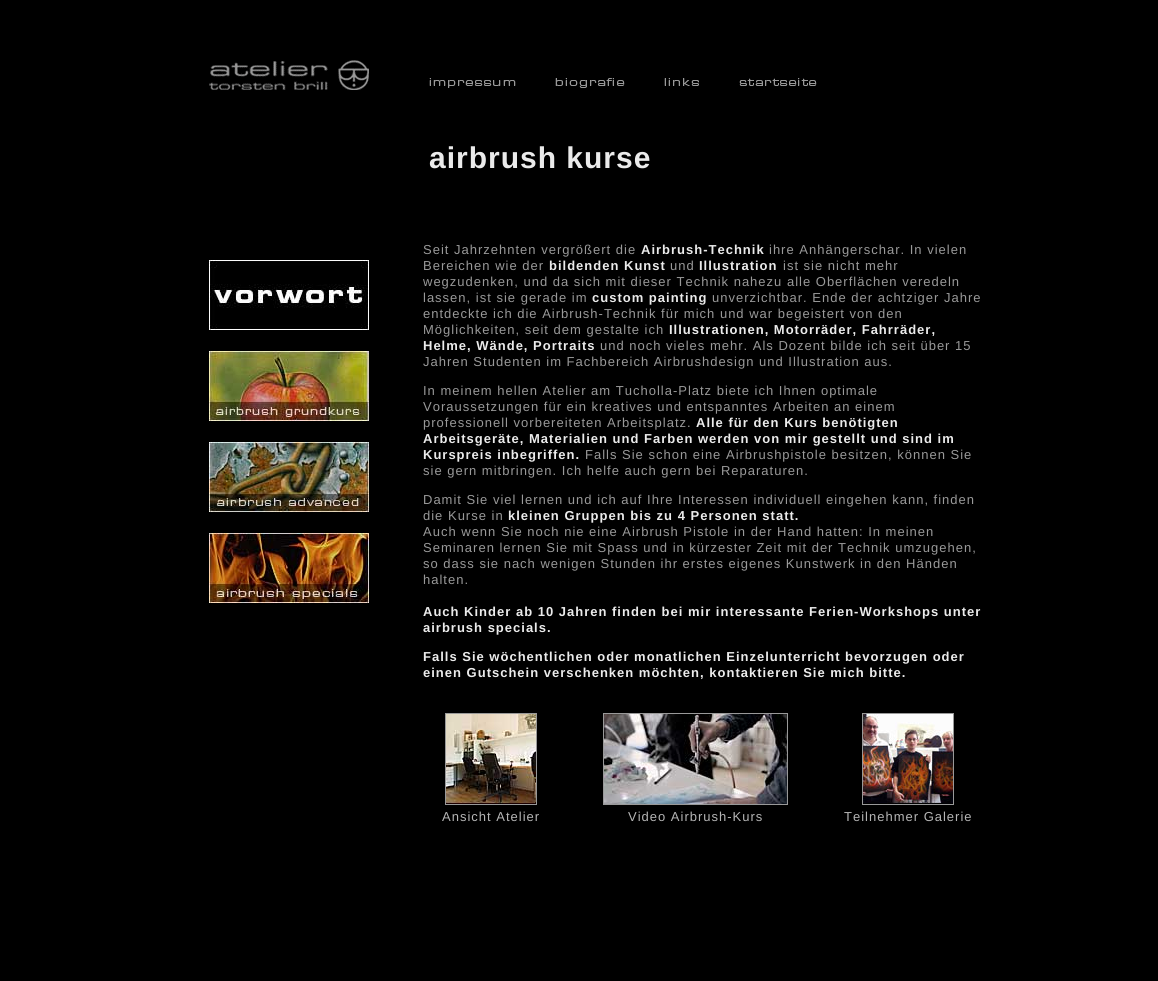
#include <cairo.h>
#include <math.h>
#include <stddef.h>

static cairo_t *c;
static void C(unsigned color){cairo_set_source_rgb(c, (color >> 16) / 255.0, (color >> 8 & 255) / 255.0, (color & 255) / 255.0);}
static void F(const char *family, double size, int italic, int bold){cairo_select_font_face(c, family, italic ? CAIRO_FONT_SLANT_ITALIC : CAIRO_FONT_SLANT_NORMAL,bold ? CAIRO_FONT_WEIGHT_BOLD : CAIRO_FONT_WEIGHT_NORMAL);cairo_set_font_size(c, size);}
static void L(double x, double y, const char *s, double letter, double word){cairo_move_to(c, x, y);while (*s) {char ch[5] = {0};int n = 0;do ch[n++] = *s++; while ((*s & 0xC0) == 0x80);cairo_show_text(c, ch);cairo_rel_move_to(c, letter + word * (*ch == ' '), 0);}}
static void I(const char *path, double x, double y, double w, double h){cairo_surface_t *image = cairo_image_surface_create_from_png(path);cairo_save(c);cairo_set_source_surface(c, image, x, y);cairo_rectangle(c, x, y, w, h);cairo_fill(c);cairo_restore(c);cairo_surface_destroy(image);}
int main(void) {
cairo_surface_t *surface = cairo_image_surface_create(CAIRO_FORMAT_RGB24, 1158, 981);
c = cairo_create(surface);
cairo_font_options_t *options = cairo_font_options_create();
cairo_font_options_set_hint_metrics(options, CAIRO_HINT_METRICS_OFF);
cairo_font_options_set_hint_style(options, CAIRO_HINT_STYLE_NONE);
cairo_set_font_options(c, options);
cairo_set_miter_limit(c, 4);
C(0x000000);
cairo_paint(c);
I("1.png",209,60,160,30);
I("2.png",429,78,87,10);
I("3.png",555,78,70,10);
I("4.png",664,78,35,8);
I("5.png",739,78,78,8);
F("Liberation Sans",30,0,1);
C(0xebebeb);
L(429,168,"airbrush kurse",1,0);
I("6.png",209,260,160,70);
F("Liberation Sans",13,0,0);
C(0x999999);
L(423,254,"Seit Jahrzehnten vergrößert die",1,0);
F("Liberation Sans",13,0,1);
C(0xebebeb);
L(641,254,"Airbrush-Technik",1,0);
F("Liberation Sans",13,0,0);
C(0x999999);
L(769,254,"ihre Anhängerschar. In vielen",1,0);
L(423,270,"Bereichen wie der",1,0);
F("Liberation Sans",13,0,1);
C(0xebebeb);
L(549,270,"bildenden Kunst",1,0);
F("Liberation Sans",13,0,0);
C(0x999999);
L(670,270,"und",1,0);
F("Liberation Sans",13,0,1);
C(0xebebeb);
L(699,270,"Illustration",1,0);
F("Liberation Sans",13,0,0);
C(0x999999);
L(783,270,"ist sie nicht mehr",1,0);
L(423,286,"wegzudenken, und da sich mit dieser Technik nahezu alle Oberflächen veredeln",1,0);
L(423,302,"lassen, ist sie gerade im",1,0);
F("Liberation Sans",13,0,1);
C(0xebebeb);
L(592,302,"custom painting",1,0);
F("Liberation Sans",13,0,0);
C(0x999999);
L(712,302,"unverzichtbar. Ende der achtziger Jahre",1,0);
L(423,318,"entdeckte ich die Airbrush-Technik für mich und war begeistert von den",1,0);
L(423,334,"Möglichkeiten, seit dem gestalte ich",1,0);
F("Liberation Sans",13,0,1);
C(0xebebeb);
L(669,334,"Illustrationen, Motorräder, Fahrräder,",1,0);
L(423,350,"Helme, Wände, Portraits",1,0);
F("Liberation Sans",13,0,0);
C(0x999999);
L(600,350,"und noch vieles mehr. Als Dozent bilde ich seit über 15",1,0);
L(423,366,"Jahren Studenten im Fachbereich Airbrushdesign und Illustration aus.",1,0);
L(423,395,"In meinem hellen Atelier am Tucholla-Platz biete ich Ihnen optimale",1,0);
L(423,411,"Voraussetzungen für ein kreatives und entspanntes Arbeiten an einem",1,0);
L(423,427,"professionell vorbereiteten Arbeitsplatz.",1,0);
F("Liberation Sans",13,0,1);
C(0xebebeb);
L(696,427,"Alle für den Kurs benötigten",1,0);
L(423,443,"Arbeitsgeräte, Materialien und Farben werden von mir gestellt und sind im",1,0);
L(423,459,"Kurspreis inbegriffen.",1,0);
F("Liberation Sans",13,0,0);
C(0x999999);
L(585,459,"Falls Sie schon eine Airbrushpistole besitzen, können Sie",1,0);
L(423,475,"sie gern mitbringen. Ich helfe auch gern bei Reparaturen.",1,0);
L(423,504,"Damit Sie viel lernen und ich auf Ihre Interessen individuell eingehen kann, finden",1,0);
L(423,520,"die Kurse in",1,0);
F("Liberation Sans",13,0,1);
C(0xebebeb);
L(508,520,"kleinen Gruppen bis zu 4 Personen statt.",1,0);
F("Liberation Sans",13,0,0);
C(0x999999);
L(423,536,"Auch wenn Sie noch nie eine Airbrush Pistole in der Hand hatten: In meinen",1,0);
L(423,552,"Seminaren lernen Sie mit Spass und in kürzester Zeit mit der Technik umzugehen,",1,0);
L(423,568,"so dass sie nach wenigen Stunden ihr erstes eigenes Kunstwerk in den Händen",1,0);
L(423,584,"halten.",1,0);
F("Liberation Sans",13,0,1);
C(0xebebeb);
L(423,616,"Auch Kinder ab 10 Jahren finden bei mir interessante Ferien-Workshops unter",1,0);
L(423,632,"airbrush specials.",1,0);
L(423,661,"Falls Sie wöchentlichen oder monatlichen Einzelunterricht bevorzugen oder",1,0);
L(423,677,"einen Gutschein verschenken möchten, kontaktieren Sie mich bitte.",1,0);
cairo_rectangle(c,445.5,713.5,91,91);
C(0x999999);
cairo_set_line_width(c,1);
cairo_stroke(c);
I("7.png",446,714,90,90);
cairo_rectangle(c,603.5,713.5,184,91);
cairo_stroke(c);
I("8.png",604,714,183,90);
cairo_rectangle(c,862.5,713.5,91,91);
cairo_stroke(c);
I("9.png",863,714,90,90);
F("Liberation Sans",13,0,0);
C(0xb5b5b5);
L(442,821,"Ansicht Atelier",1,0);
L(628,821,"Video Airbrush-Kurs",1,0);
L(844,821,"Teilnehmer Galerie",1,0);
I("10.png",209,351,160,70);
I("11.png",209,442,160,70);
I("12.png",209,533,160,70);
cairo_surface_write_to_png(surface, "o.png");
cairo_font_options_destroy(options);
cairo_destroy(c);
cairo_surface_destroy(surface);
return 0;
}
